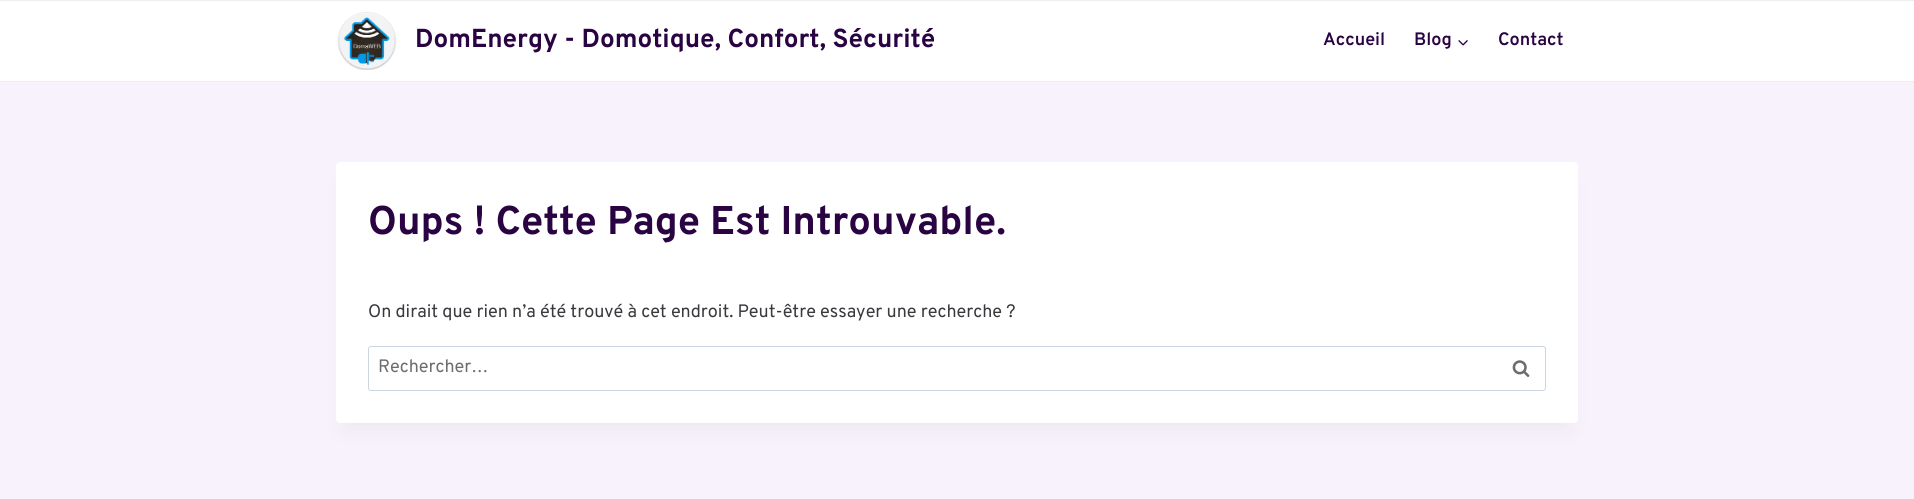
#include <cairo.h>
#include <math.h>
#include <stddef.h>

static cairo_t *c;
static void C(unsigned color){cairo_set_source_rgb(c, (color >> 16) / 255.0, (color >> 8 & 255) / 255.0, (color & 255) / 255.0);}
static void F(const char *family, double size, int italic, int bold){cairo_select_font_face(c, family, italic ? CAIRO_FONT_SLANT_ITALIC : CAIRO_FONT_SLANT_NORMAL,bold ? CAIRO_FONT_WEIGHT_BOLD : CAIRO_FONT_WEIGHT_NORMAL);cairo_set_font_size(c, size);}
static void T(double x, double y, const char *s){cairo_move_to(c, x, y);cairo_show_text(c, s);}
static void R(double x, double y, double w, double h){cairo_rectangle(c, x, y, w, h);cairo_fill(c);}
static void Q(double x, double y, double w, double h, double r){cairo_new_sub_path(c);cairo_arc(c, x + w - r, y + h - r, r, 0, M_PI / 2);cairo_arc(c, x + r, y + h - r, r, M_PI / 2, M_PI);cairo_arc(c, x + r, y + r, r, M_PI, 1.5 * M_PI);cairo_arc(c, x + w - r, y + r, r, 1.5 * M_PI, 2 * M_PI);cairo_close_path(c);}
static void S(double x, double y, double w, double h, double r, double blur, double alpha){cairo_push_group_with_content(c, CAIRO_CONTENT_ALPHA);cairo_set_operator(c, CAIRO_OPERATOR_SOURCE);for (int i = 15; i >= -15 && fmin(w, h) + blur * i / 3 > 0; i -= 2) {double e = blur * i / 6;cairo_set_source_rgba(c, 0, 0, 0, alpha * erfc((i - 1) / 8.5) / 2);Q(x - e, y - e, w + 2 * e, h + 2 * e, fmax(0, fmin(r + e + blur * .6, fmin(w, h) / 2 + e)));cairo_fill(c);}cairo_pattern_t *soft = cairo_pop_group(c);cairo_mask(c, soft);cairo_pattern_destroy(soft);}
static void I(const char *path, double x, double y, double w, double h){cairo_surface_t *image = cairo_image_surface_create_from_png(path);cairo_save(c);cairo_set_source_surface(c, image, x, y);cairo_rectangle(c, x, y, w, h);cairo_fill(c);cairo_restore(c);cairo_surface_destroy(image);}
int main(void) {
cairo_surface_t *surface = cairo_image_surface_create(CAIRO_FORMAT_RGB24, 1914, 499);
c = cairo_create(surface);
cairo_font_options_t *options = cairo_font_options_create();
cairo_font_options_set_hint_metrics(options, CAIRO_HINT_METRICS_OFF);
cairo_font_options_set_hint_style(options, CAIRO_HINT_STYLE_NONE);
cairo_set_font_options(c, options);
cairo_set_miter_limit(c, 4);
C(0xf7f2fc);
cairo_paint(c);
C(0xffffff);
R(0,1,1914,80);
C(0xeeeeee);
R(0,0,1914,1);
R(0,81,1914,1);
I("1.png",337,12,60,58);
F("Overpass",26,0,1);
C(0x290342);
T(415,47,"DomEnergy - Domotique, Confort, Sécurité");
F("Overpass SemiBold",18,0,0);
T(1323,45,"Accueil");
T(1414,45,"Blog");
I("2.png",1458,40,10,6);
T(1498,45,"Contact");
C(0x000000);
S(346,187,1222,241,0,12.5,.05);
C(0xffffff);
Q(336,162,1242,261,4);
cairo_fill(c);
F("Overpass",40,0,1);
C(0x290342);
T(368,234,"Oups ! Cette Page Est Introuvable.");
F("Overpass",18,0,0);
C(0x3b383e);
T(368,317,"On dirait que rien n’a été trouvé à cet endroit. Peut-être essayer une recherche ?");
Q(368.5,346.5,1177,44,2.5);
C(0xcbd5e0);
cairo_set_line_width(c,1);
cairo_stroke(c);
C(0x6d6d6f);
T(378,372,"Rechercher…");
I("3.png",1512,360,18,17);
cairo_surface_write_to_png(surface, "o.png");
cairo_font_options_destroy(options);
cairo_destroy(c);
cairo_surface_destroy(surface);
return 0;
}
